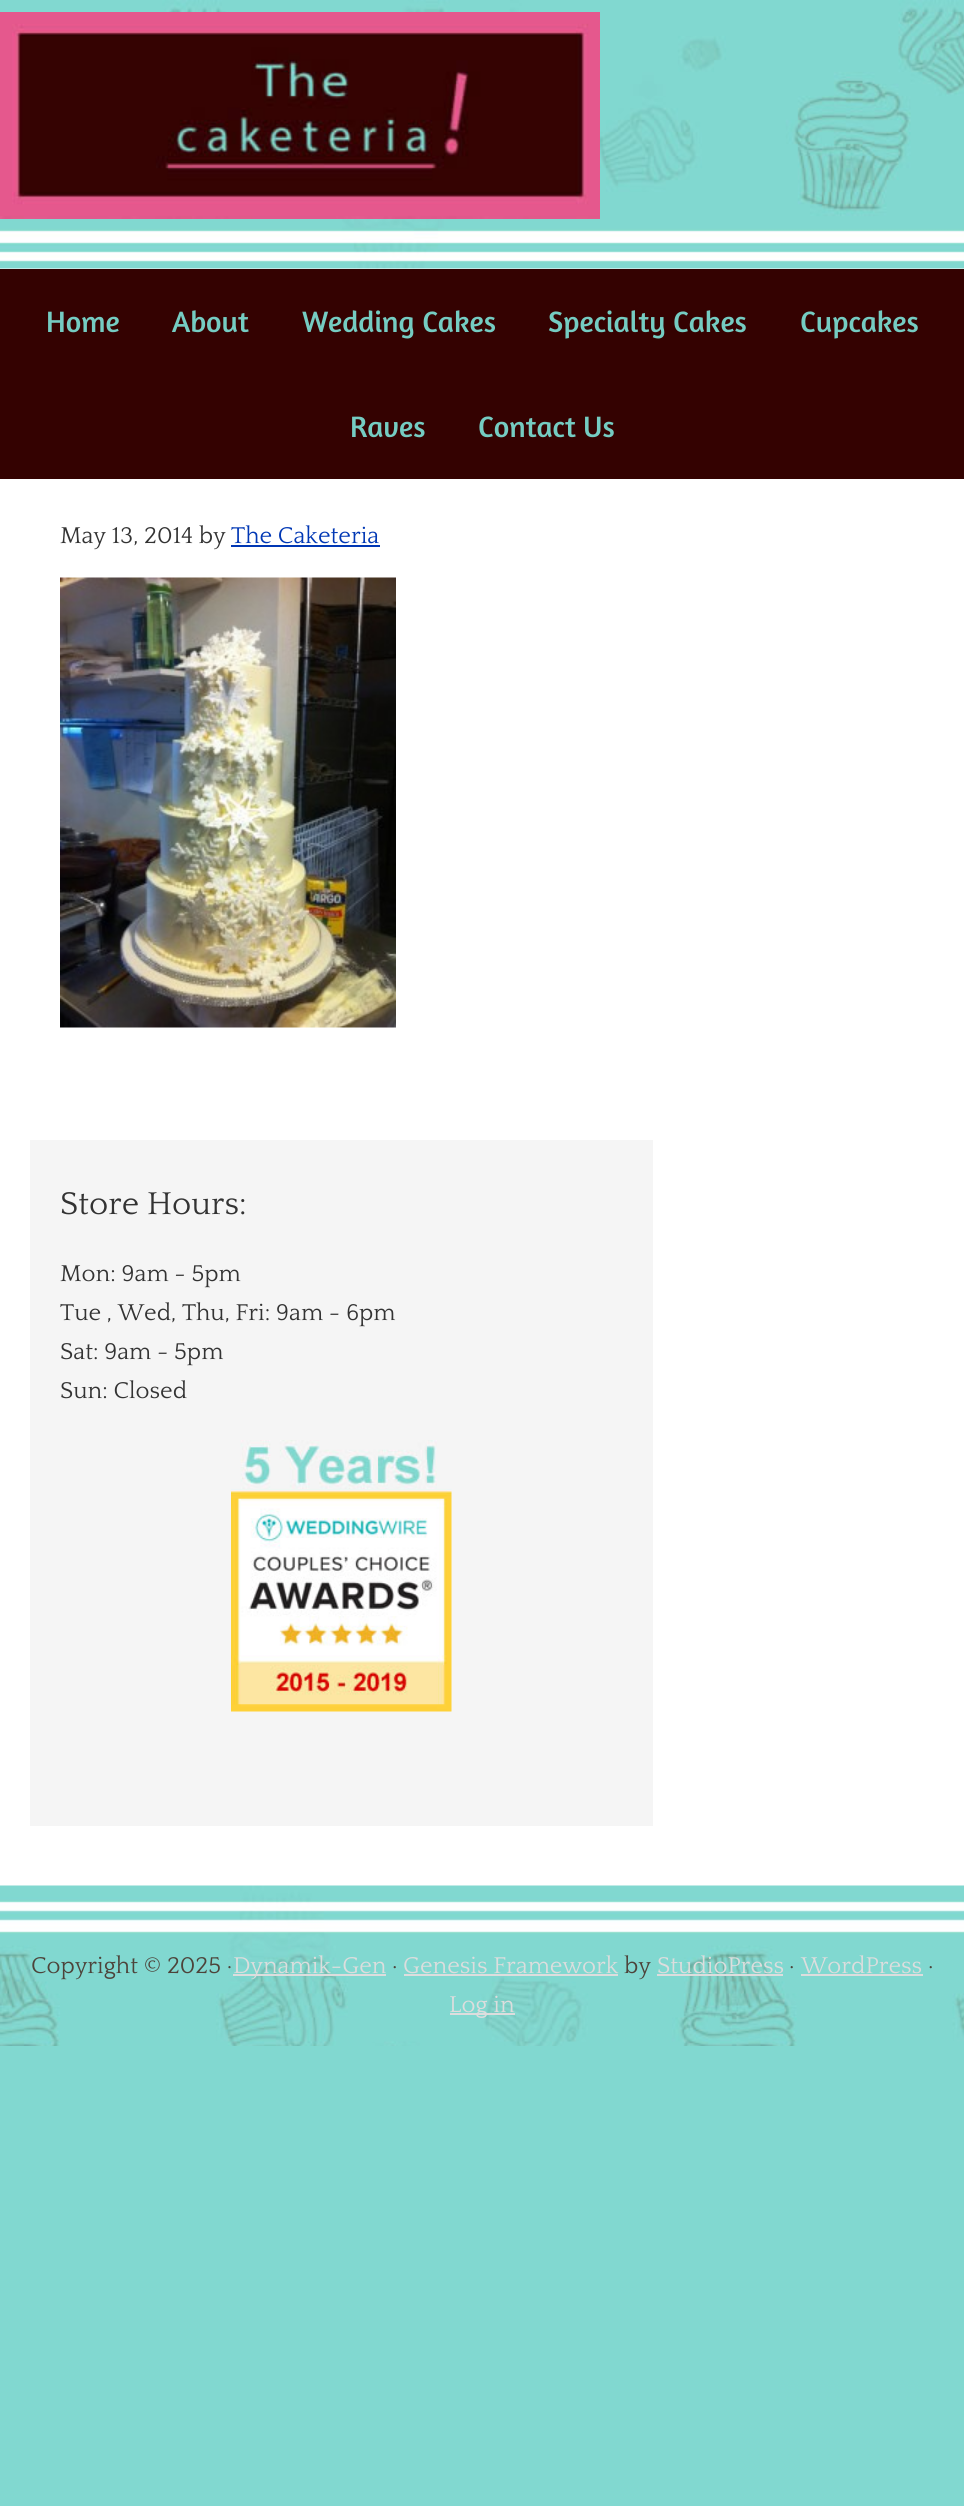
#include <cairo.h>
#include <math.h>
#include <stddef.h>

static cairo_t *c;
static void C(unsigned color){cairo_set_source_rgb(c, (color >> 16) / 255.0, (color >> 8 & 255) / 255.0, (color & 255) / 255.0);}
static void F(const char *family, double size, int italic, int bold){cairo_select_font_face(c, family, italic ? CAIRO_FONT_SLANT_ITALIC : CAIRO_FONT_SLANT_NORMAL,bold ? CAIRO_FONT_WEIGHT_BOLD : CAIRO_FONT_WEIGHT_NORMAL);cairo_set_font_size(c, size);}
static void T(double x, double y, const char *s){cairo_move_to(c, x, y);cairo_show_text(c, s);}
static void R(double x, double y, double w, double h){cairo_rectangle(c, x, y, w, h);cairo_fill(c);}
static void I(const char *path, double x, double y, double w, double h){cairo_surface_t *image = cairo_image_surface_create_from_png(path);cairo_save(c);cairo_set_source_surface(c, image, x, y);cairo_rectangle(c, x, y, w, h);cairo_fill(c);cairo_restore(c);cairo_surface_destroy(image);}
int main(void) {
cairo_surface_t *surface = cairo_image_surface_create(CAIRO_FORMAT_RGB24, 964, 2506);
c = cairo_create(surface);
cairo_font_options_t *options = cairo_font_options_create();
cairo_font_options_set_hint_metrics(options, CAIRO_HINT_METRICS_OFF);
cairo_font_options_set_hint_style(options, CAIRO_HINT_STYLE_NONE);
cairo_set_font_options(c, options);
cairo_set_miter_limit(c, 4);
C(0x81d8d0);
cairo_paint(c);
C(0xffffff);
R(0,268,964,1);
I("1.png",0,0,964,269);
I("2.png",0,12,600,207);
C(0x340201);
R(0,269,964,210);
F("Amaranth",30,0,0);
C(0x75ccc2);
T(46,332,"Home");
T(172,332,"About");
T(302,332,"Wedding Cakes");
T(548,332,"Specialty Cakes");
T(800,332,"Cupcakes");
T(350,437,"Raves");
T(478,437,"Contact Us");
C(0xffffff);
R(0,479,964,1407);
F("Quattrocento",24,0,0);
C(0x333333);
T(60,543,"May 13, 2014 by");
C(0x0037b4);
T(231,543,"The Caketeria");
R(231,545,149,2);
I("3.png",60,577,336,451);
C(0xf5f5f5);
R(30,1140,623,686);
F("Quattrocento",33,0,0);
C(0x333333);
T(60,1214,"Store Hours:");
F("Quattrocento",24,0,0);
T(60,1281,"Mon: 9am - 5pm");
T(60,1320,"Tue , Wed, Thu, Fri: 9am - 6pm");
T(60,1359,"Sat: 9am - 5pm");
T(60,1398,"Sun: Closed");
I("4.png",231,1440,221,272);
I("5.png",0,1885,964,161);
C(0x4d433a);
T(31,1973,"Copyright © 2025 ·");
C(0xdddddd);
R(233,1974,153,2);
T(233,1973,"Dynamik-Gen");
C(0x4d433a);
T(392,1973,"·");
C(0xdddddd);
T(403,1973,"Genesis Framework");
R(404,1974,214,2);
C(0x4d433a);
T(624,1973,"by");
C(0xdddddd);
T(657,1973,"StudioPress");
R(657,1974,126,2);
C(0x4d433a);
T(789,1973,"·");
C(0xdddddd);
T(801,1973,"WordPress");
R(801,1974,122,2);
C(0x4d433a);
T(928,1973,"·");
C(0xdddddd);
R(450,2013,65,2);
T(449,2012,"Log in");
cairo_surface_write_to_png(surface, "o.png");
cairo_font_options_destroy(options);
cairo_destroy(c);
cairo_surface_destroy(surface);
return 0;
}
